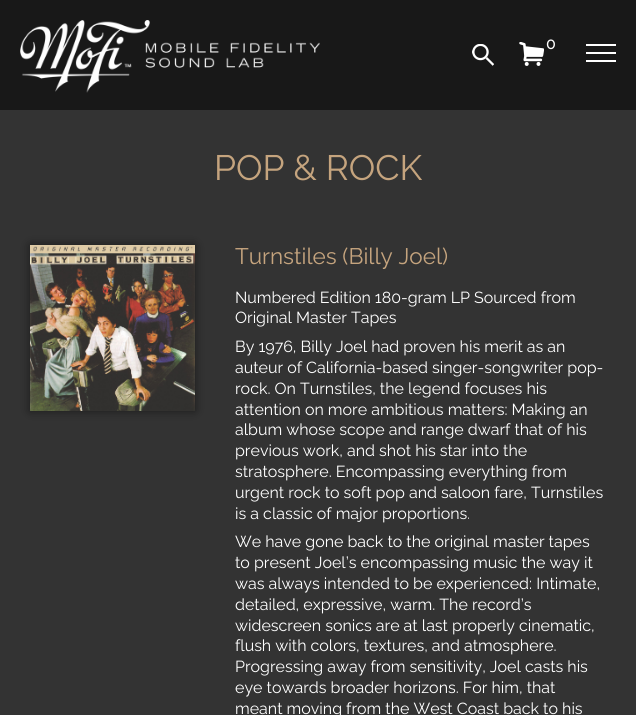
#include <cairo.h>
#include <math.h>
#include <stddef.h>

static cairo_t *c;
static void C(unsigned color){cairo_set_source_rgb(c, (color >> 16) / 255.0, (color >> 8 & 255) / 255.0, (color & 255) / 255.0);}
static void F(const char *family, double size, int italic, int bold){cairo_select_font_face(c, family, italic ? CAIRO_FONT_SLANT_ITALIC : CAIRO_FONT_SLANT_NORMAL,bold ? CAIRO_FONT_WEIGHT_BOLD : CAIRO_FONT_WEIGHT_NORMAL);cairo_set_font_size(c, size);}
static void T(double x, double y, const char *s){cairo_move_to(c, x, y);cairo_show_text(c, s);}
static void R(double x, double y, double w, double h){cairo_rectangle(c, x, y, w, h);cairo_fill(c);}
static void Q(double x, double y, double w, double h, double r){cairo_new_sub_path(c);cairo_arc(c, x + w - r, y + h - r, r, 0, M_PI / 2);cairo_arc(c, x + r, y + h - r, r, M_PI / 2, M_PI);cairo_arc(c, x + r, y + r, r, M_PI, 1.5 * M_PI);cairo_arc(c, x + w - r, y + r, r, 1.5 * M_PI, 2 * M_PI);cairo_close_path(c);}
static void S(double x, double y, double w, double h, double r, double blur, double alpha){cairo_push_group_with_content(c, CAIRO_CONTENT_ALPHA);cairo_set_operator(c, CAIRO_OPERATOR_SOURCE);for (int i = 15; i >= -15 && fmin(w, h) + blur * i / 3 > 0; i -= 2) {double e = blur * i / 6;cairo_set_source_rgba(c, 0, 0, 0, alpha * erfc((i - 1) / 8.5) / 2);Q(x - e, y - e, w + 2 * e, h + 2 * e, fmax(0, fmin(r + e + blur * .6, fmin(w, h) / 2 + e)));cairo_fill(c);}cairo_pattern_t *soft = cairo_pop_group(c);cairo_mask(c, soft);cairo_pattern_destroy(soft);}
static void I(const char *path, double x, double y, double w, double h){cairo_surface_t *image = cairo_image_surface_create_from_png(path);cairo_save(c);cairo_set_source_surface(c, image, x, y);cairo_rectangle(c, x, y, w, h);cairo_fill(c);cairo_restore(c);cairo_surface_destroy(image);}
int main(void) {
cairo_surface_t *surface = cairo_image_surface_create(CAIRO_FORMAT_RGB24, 636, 715);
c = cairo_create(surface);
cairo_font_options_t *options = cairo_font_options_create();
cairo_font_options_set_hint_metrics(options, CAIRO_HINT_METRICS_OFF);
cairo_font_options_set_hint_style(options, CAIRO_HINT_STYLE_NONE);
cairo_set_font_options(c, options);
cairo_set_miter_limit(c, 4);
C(0x333333);
cairo_paint(c);
C(0x181818);
R(0,0,636,110);
I("1.png",20,20,300,73);
I("2.png",472,44,22,22);
I("3.png",519,42,25,24);
F("Raleway Medium",16,0,0);
C(0xffffff);
T(546,49,"0");
R(586,52,30,2);
R(586,44,30,2);
R(586,60,30,2);
F("Raleway",35.25,0,0);
C(0xc5a47e);
T(214,180,"POP & ROCK");
C(0x000000);
S(30,245,165,166,0,5,.5);
I("4.png",30,245,165,166);
F("Raleway",22.5,0,0);
C(0xc5a47e);
T(235,264,"Turnstiles (Billy Joel)");
F("Raleway",16,0,0);
C(0xffffff);
T(235,303,"Numbered Edition 180-gram LP Sourced from");
T(235,323,"Original Master Tapes");
T(235,352,"By 1976, Billy Joel had proven his merit as an");
T(235,373,"auteur of California-based singer-songwriter pop-");
T(235,394,"rock. On Turnstiles, the legend focuses his");
T(235,415,"attention on more ambitious matters: Making an");
T(235,435,"album whose scope and range dwarf that of his");
T(235,456,"previous work, and shot his star into the");
T(235,477,"stratosphere. Encompassing everything from");
T(235,498,"urgent rock to soft pop and saloon fare, Turnstiles");
T(235,519,"is a classic of major proportions.");
T(235,547,"We have gone back to the original master tapes");
T(235,568,"to present Joel’s encompassing music the way it");
T(235,589,"was always intended to be experienced: Intimate,");
T(235,610,"detailed, expressive, warm. The record’s");
T(235,631,"widescreen sonics are at last properly cinematic,");
T(235,651,"flush with colors, textures, and atmosphere.");
T(235,672,"Progressing away from sensitivity, Joel casts his");
T(235,693,"eye towards broader horizons. For him, that");
T(235,714,"meant moving from the West Coast back to his");
cairo_surface_write_to_png(surface, "o.png");
cairo_font_options_destroy(options);
cairo_destroy(c);
cairo_surface_destroy(surface);
return 0;
}
